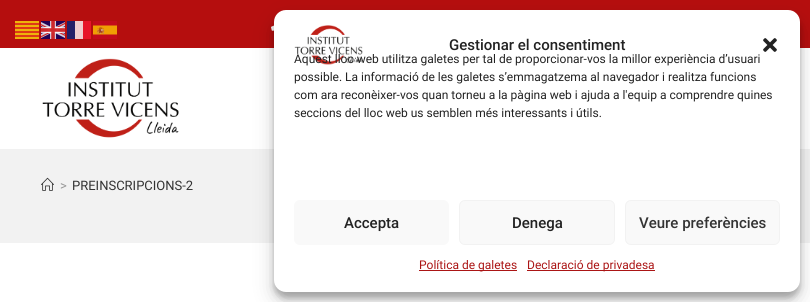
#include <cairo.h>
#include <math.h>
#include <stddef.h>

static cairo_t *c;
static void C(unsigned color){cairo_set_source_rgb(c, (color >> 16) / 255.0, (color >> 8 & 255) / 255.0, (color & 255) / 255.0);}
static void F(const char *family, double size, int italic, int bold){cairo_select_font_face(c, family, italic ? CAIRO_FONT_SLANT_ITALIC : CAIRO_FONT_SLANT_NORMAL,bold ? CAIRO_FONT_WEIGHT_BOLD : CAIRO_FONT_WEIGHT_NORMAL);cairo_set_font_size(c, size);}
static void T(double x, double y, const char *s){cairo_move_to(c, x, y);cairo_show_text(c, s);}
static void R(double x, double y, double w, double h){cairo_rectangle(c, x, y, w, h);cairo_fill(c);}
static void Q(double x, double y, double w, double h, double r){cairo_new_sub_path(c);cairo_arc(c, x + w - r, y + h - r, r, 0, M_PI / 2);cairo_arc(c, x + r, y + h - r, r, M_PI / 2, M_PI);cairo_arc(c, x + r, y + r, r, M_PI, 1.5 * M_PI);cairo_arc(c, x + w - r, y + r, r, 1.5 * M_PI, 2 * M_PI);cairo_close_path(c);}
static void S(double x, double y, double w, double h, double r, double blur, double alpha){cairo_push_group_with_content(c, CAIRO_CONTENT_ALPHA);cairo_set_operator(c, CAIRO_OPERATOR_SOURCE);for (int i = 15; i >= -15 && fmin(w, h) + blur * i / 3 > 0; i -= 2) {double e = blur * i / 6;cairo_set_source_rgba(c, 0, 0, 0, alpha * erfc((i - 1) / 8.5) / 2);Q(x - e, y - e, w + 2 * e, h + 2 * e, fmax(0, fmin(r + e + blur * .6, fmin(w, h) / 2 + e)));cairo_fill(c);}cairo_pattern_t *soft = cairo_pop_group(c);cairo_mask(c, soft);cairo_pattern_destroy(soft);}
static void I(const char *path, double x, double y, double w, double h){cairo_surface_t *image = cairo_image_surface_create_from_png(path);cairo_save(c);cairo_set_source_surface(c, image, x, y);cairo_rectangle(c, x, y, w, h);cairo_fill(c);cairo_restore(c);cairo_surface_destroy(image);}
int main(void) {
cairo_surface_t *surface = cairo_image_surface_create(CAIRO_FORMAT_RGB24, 810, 302);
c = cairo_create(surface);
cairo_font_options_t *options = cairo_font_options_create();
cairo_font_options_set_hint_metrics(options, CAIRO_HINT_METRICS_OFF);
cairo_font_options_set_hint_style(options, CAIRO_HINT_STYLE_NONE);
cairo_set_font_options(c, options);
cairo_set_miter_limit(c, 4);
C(0xffffff);
cairo_paint(c);
C(0xb50e0e);
R(0,0,810,48);
I("1.png",15,21,24,18);
I("2.png",41,21,24,18);
C(0x242168);
R(67,21,8,18);
C(0xf0cfcf);
R(75,21,8,18);
C(0xe71629);
R(83,21,8,18);
I("3.png",93,21,24,18);
I("4.png",271,25,3,6);
C(0xf1f1f1);
R(0,149,810,1);
I("5.png",42,58,137,80);
C(0xf2f2f2);
R(0,150,810,93);
I("6.png",41,177,13,14);
F("Roboto",13,0,0);
C(0x999999);
T(60,190,">");
C(0x333333);
T(72,190,"PREINSCRIPCIONS-2");
C(0x000000);
S(274,16,526,282,12,3,.23);
S(274,20,526,282,12,10,.19);
C(0xffffff);
Q(274,10,526,282,12);
cairo_fill(c);
I("7.png",294,25,69,40);
F("Roboto Medium",15,0,0);
C(0x222222);
T(449,50,"Gestionar el consentiment");
I("8.png",763,38,14,14);
F("Roboto",12,0,0);
T(294,63,"Aquest lloc web utilitza galetes per tal de proporcionar-vos la millor experiència d’usuari");
T(294,81,"possible. La informació de les galetes s’emmagatzema al navegador i realitza funcions");
T(294,99,"com ara reconèixer-vos quan torneu a la pàgina web i ajuda a l'equip a comprendre quines");
T(294,117,"seccions del lloc web us semblen més interessants i útils.");
C(0xf9f9f9);
Q(294,200,155,45,6);
cairo_fill(c);
F("Roboto Medium",15,0,0);
C(0x222222);
T(344,228,"Accepta");
C(0xf9f9f9);
Q(459.5,200.5,155,44,5.5);
cairo_fill_preserve(c);
C(0xf2f2f2);
cairo_set_line_width(c,1);
cairo_stroke(c);
C(0x222222);
T(512,228,"Denega");
C(0xf9f9f9);
Q(625.5,200.5,154,44,5.5);
cairo_fill_preserve(c);
C(0xf2f2f2);
cairo_stroke(c);
C(0x333333);
T(639,228,"Veure preferències");
C(0xab1515);
R(419,270,98,1);
F("Roboto",12,0,0);
T(419,269,"Política de galetes");
R(527,270,128,1);
T(527,269,"Declaració de privadesa");
cairo_surface_write_to_png(surface, "o.png");
cairo_font_options_destroy(options);
cairo_destroy(c);
cairo_surface_destroy(surface);
return 0;
}
